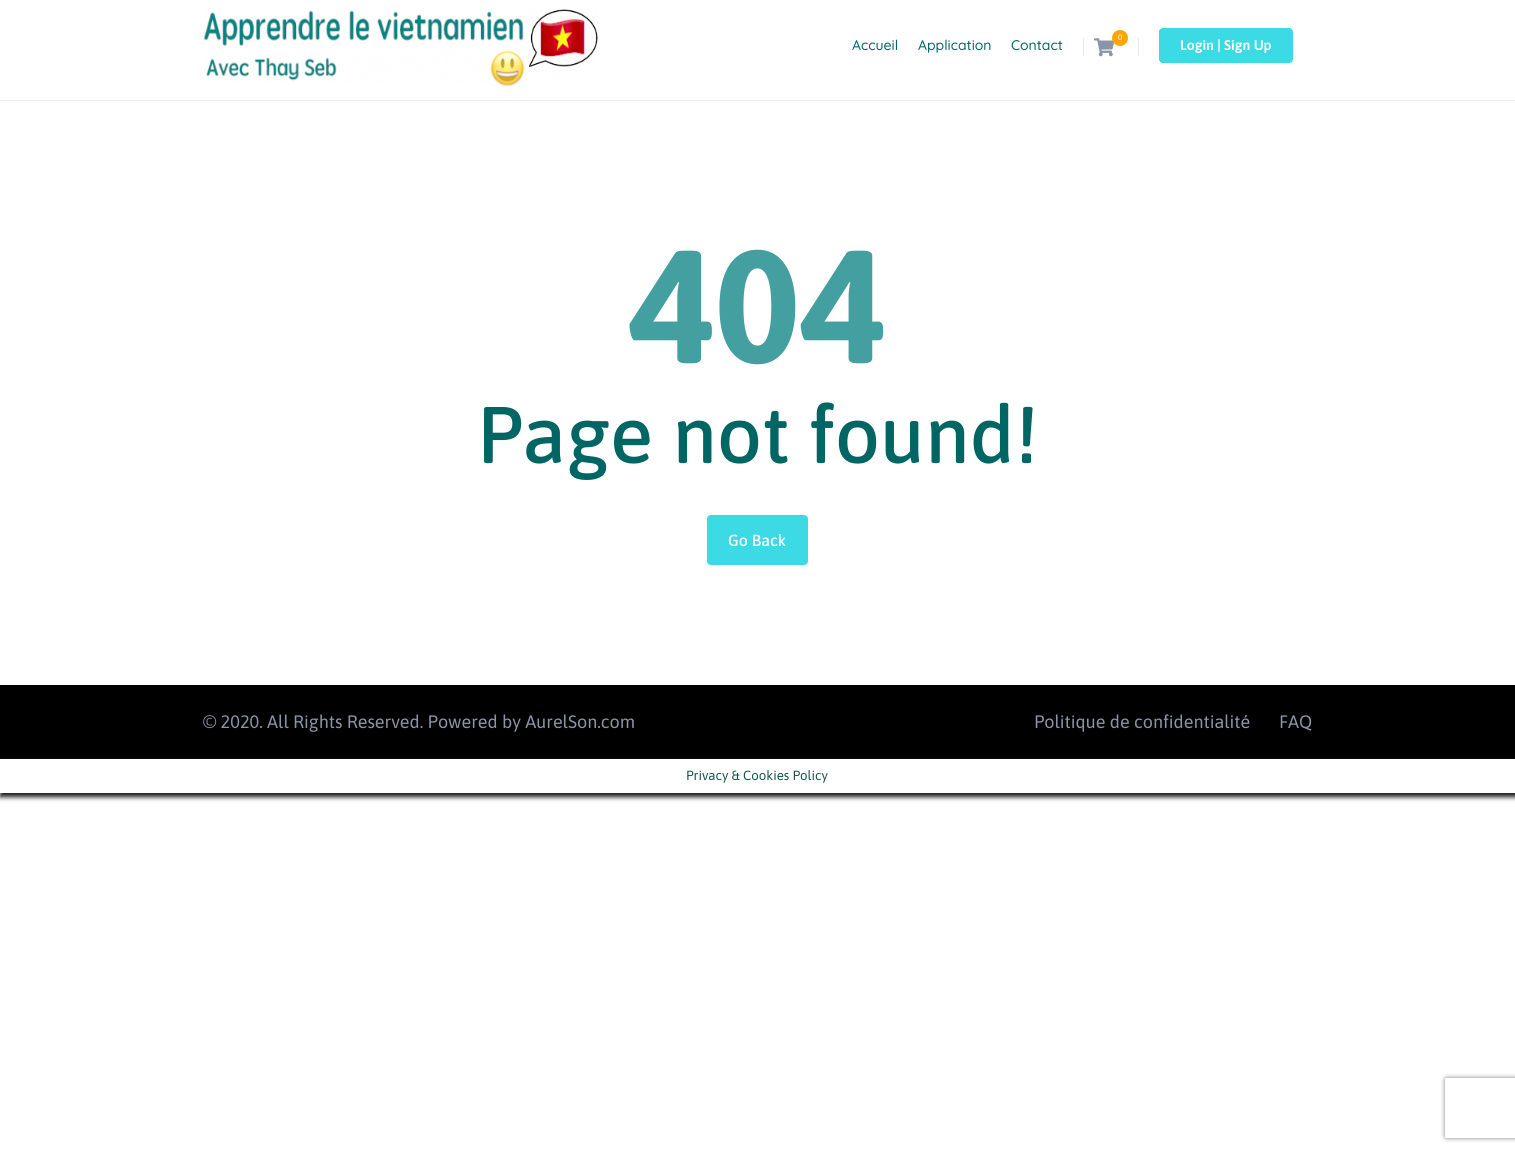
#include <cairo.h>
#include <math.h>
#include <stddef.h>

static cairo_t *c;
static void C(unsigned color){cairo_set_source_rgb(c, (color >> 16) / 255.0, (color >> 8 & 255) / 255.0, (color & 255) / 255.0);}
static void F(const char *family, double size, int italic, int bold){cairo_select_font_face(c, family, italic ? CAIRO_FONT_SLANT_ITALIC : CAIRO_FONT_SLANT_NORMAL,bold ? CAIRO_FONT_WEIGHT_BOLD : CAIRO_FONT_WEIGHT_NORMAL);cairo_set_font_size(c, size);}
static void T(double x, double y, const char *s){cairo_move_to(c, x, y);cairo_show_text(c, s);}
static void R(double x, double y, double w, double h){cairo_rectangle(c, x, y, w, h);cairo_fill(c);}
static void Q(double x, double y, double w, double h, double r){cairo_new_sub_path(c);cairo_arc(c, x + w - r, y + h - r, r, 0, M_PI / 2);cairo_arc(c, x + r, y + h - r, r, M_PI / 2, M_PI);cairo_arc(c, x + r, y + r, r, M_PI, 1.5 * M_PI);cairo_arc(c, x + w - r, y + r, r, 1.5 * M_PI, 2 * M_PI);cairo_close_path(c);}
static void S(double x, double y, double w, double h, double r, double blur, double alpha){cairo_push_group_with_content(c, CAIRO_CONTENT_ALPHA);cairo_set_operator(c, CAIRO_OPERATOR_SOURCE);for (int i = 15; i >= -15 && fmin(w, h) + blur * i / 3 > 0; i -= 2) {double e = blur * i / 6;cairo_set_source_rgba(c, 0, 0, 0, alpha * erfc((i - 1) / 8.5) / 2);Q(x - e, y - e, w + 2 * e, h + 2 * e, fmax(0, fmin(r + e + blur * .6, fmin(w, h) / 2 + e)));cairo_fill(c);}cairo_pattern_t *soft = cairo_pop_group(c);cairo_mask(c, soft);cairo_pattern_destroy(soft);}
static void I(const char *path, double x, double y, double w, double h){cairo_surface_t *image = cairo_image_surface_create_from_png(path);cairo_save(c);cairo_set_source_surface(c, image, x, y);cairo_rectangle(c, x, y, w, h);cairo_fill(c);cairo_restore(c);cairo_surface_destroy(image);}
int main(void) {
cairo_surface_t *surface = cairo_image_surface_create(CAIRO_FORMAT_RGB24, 1515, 1152);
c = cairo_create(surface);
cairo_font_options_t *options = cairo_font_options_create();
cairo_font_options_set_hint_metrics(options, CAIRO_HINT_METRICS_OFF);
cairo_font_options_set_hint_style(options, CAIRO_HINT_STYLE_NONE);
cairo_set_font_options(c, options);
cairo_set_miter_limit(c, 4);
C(0xffffff);
cairo_paint(c);
C(0xeeeeee);
R(0,100,1515,1);
I("1.png",203,9,395,77);
C(0xe6eaeb);
R(1138,38,1,18);
R(1083,38,1,18);
I("2.png",1094,38,20,19);
C(0xffa500);
cairo_arc(c,1120,38,8,0,2 * M_PI);
cairo_fill(c);
F("Asap",8,0,0);
C(0xffffff);
T(1118,40,"0");
F("Quicksand Medium",14,0,0);
C(0x006664);
T(852,50,"Accueil");
T(918,50,"Application");
T(1011,50,"Contact");
C(0x3bdae5);
Q(1159,28,134,35,4);
cairo_fill(c);
F("Asap SemiBold",14,0,0);
C(0xffffff);
T(1180,50,"Login | Sign Up");
F("Asap",160,0,1);
C(0x439fa0);
T(629,363,"404");
F("Asap Medium",80,0,0);
C(0x006664);
T(477,463,"Page not found!");
C(0x3bdae5);
Q(707.5,515.5,100,49,3.5);
cairo_fill_preserve(c);
cairo_set_line_width(c,1);
cairo_stroke(c);
F("Asap Medium",16,0,0);
C(0xffffff);
T(728,546,"Go Back");
C(0x000000);
R(0,685,1515,74);
F("Asap",18,0,0);
C(0x8c94a8);
T(203,728,"© 2020. All Rights Reserved. Powered by AurelSon.com");
T(1034,728,"Politique de confidentialité");
T(1279,728,"FAQ");
cairo_save(c);
cairo_set_fill_rule(c,CAIRO_FILL_RULE_EVEN_ODD);
cairo_new_path(c);
cairo_move_to(c,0,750);
cairo_line_to(c,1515,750);
cairo_line_to(c,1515,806);
cairo_line_to(c,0,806);
cairo_close_path(c);
cairo_move_to(c,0,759);
cairo_line_to(c,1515,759);
cairo_line_to(c,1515,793);
cairo_line_to(c,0,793);
cairo_close_path(c);
cairo_clip(c);
C(0x161616);
S(0,759,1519,38,0,2.5,1);
cairo_restore(c);
F("Asap",13.25,0,0);
C(0x18564d);
T(686,780,"Privacy & Cookies Policy");
cairo_save(c);
cairo_set_fill_rule(c,CAIRO_FILL_RULE_EVEN_ODD);
cairo_new_path(c);
cairo_move_to(c,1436,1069);
cairo_line_to(c,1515,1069);
cairo_line_to(c,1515,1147);
cairo_line_to(c,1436,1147);
cairo_close_path(c);
cairo_move_to(c,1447,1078);
cairo_line_to(c,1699,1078);
cairo_curve_to(c,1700,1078,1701,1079,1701,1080);
cairo_line_to(c,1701,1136);
cairo_curve_to(c,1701,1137,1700,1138,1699,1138);
cairo_line_to(c,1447,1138);
cairo_curve_to(c,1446,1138,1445,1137,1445,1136);
cairo_line_to(c,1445,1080);
cairo_curve_to(c,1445,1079,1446,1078,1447,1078);
cairo_close_path(c);
cairo_clip(c);
C(0x808080);
S(1445,1078,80,60,2,2.5,1);
cairo_restore(c);
cairo_surface_write_to_png(surface, "o.png");
cairo_font_options_destroy(options);
cairo_destroy(c);
cairo_surface_destroy(surface);
return 0;
}
